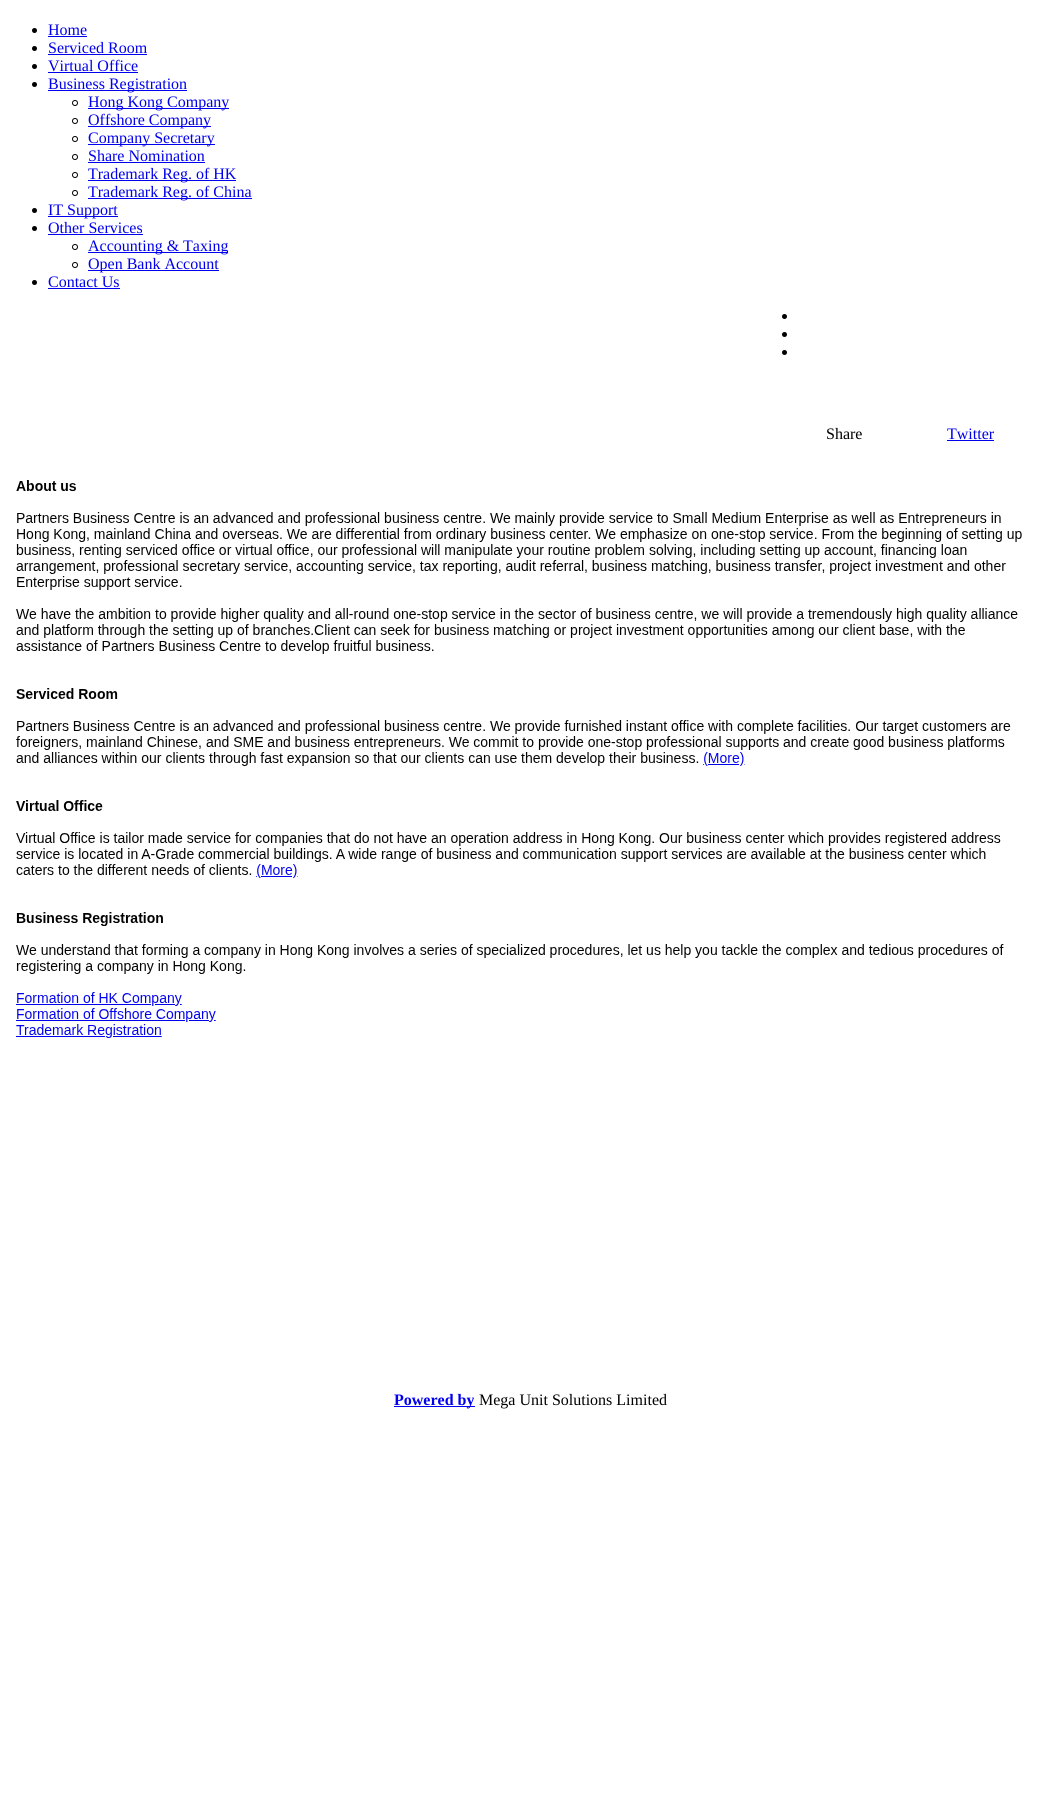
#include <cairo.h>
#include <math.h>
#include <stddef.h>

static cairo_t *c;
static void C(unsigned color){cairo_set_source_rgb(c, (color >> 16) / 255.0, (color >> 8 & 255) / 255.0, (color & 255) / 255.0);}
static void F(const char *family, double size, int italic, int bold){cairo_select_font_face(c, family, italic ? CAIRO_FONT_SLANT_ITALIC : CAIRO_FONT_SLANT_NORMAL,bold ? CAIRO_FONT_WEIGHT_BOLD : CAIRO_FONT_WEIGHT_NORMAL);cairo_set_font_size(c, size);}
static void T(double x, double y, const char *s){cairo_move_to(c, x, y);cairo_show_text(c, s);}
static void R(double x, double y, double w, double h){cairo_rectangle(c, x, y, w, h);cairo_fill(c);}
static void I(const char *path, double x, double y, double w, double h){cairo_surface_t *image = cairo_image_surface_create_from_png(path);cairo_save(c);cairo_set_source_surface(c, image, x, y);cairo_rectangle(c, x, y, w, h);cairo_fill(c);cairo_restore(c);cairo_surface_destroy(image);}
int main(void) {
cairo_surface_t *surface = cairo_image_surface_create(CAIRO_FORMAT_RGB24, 1061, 1805);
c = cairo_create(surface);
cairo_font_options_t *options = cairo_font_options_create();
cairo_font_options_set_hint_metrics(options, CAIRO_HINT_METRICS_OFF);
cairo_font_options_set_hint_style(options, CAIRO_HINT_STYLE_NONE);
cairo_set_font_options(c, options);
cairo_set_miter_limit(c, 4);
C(0xffffff);
cairo_paint(c);
C(0x000000);
cairo_arc(c,34.5,30.5,2.5,0,2 * M_PI);
cairo_fill(c);
F("Liberation Serif",16,0,0);
C(0x0000ee);
T(48,35,"Home");
R(48,36,39,1);
C(0x000000);
cairo_new_path(c);
cairo_arc(c,34.5,48.5,2.5,0,2 * M_PI);
cairo_fill(c);
C(0x0000ee);
T(48,53,"Serviced Room");
R(48,54,99,1);
C(0x000000);
cairo_new_path(c);
cairo_arc(c,34.5,66.5,2.5,0,2 * M_PI);
cairo_fill(c);
C(0x0000ee);
T(48,71,"Virtual Office");
R(48,72,90,1);
C(0x000000);
cairo_new_path(c);
cairo_arc(c,34.5,84.5,2.5,0,2 * M_PI);
cairo_fill(c);
C(0x0000ee);
R(48,90,139,1);
T(48,89,"Business Registration");
cairo_new_path(c);
cairo_arc(c,75,103,2.5,0,2 * M_PI);
C(0x000000);
cairo_set_line_width(c,1);
cairo_stroke(c);
C(0x0000ee);
R(88,108,141,1);
T(88,107,"Hong Kong Company");
cairo_new_path(c);
cairo_arc(c,75,121,2.5,0,2 * M_PI);
C(0x000000);
cairo_stroke(c);
C(0x0000ee);
R(88,126,123,1);
T(88,125,"Offshore Company");
cairo_new_path(c);
cairo_arc(c,75,139,2.5,0,2 * M_PI);
C(0x000000);
cairo_stroke(c);
C(0x0000ee);
R(88,144,127,1);
T(88,143,"Company Secretary");
cairo_new_path(c);
cairo_arc(c,75,157,2.5,0,2 * M_PI);
C(0x000000);
cairo_stroke(c);
C(0x0000ee);
T(88,161,"Share Nomination");
R(88,162,117,1);
cairo_new_path(c);
cairo_arc(c,75,175,2.5,0,2 * M_PI);
C(0x000000);
cairo_stroke(c);
C(0x0000ee);
R(88,180,148,1);
T(88,179,"Trademark Reg. of HK");
cairo_new_path(c);
cairo_arc(c,75,193,2.5,0,2 * M_PI);
C(0x000000);
cairo_stroke(c);
C(0x0000ee);
R(88,198,164,1);
T(88,197,"Trademark Reg. of China");
C(0x000000);
cairo_new_path(c);
cairo_arc(c,34.5,210.5,2.5,0,2 * M_PI);
cairo_fill(c);
C(0x0000ee);
R(48,216,70,1);
T(48,215,"IT Support");
C(0x000000);
cairo_new_path(c);
cairo_arc(c,34.5,228.5,2.5,0,2 * M_PI);
cairo_fill(c);
C(0x0000ee);
T(48,233,"Other Services");
R(48,234,95,1);
cairo_new_path(c);
cairo_arc(c,75,247,2.5,0,2 * M_PI);
C(0x000000);
cairo_stroke(c);
C(0x0000ee);
R(88,252,140,1);
T(88,251,"Accounting & Taxing");
cairo_new_path(c);
cairo_arc(c,75,265,2.5,0,2 * M_PI);
C(0x000000);
cairo_stroke(c);
C(0x0000ee);
R(88,270,131,1);
T(88,269,"Open Bank Account");
C(0x000000);
cairo_new_path(c);
cairo_arc(c,34.5,282.5,2.5,0,2 * M_PI);
cairo_fill(c);
C(0x0000ee);
T(48,287,"Contact Us");
R(48,288,72,1);
C(0x000000);
cairo_new_path(c);
cairo_arc(c,784.5,316.5,2.5,0,2 * M_PI);
cairo_fill(c);
cairo_arc(c,784.5,334.5,2.5,0,2 * M_PI);
cairo_fill(c);
cairo_arc(c,784.5,352.5,2.5,0,2 * M_PI);
cairo_fill(c);
T(826,439,"Share");
C(0x0000ee);
T(947,439,"Twitter");
R(947,440,47,1);
I("1.png",16,480,1006,558);
R(394,1406,81,1);
F("Liberation Serif",16,0,1);
T(394,1405,"Powered by");
F("Liberation Serif",16,0,0);
C(0x000000);
T(479,1405,"Mega Unit Solutions Limited");
cairo_surface_write_to_png(surface, "o.png");
cairo_font_options_destroy(options);
cairo_destroy(c);
cairo_surface_destroy(surface);
return 0;
}
